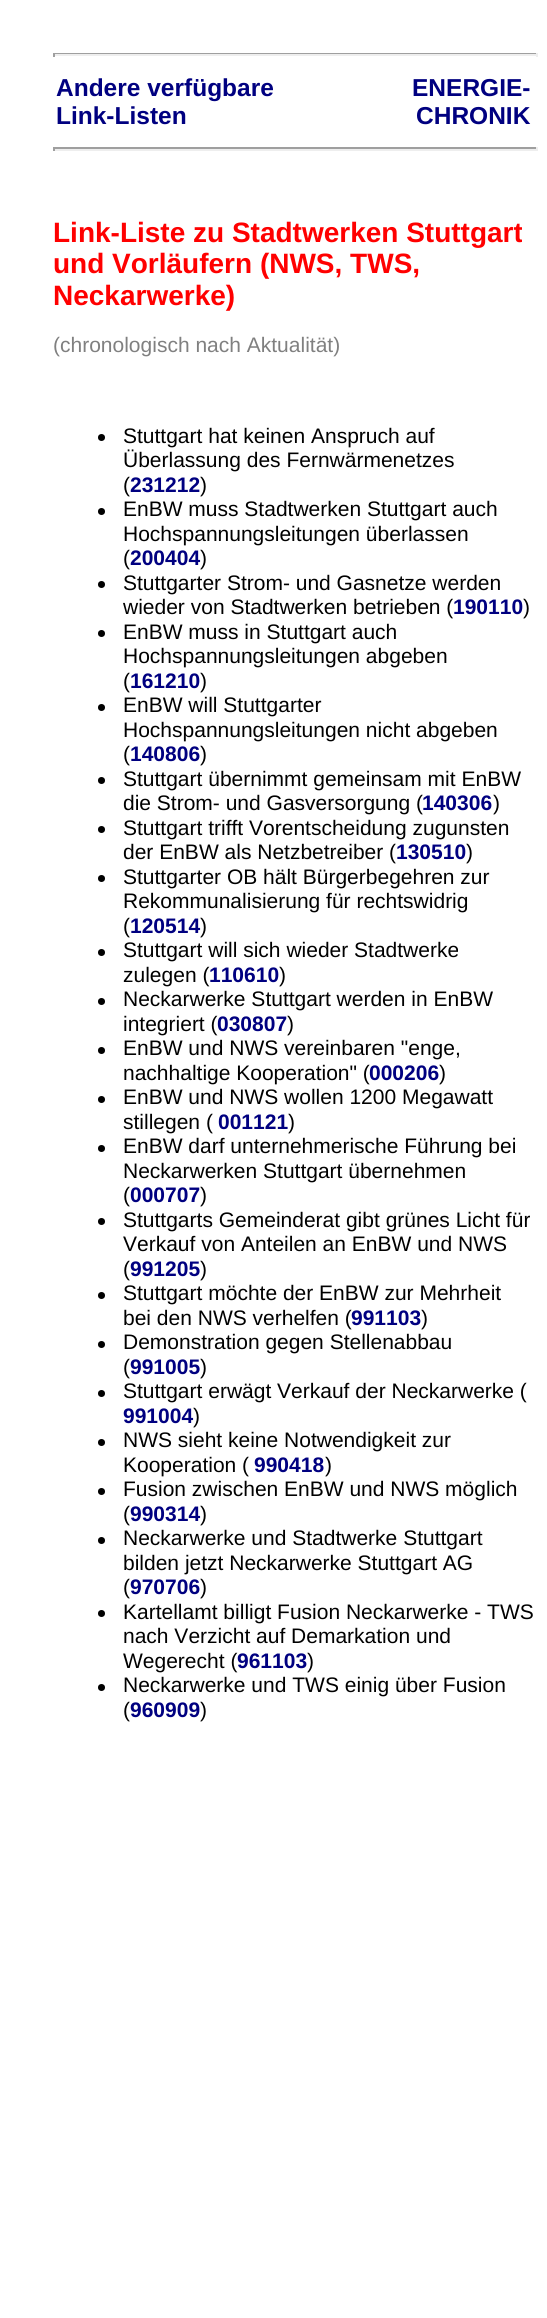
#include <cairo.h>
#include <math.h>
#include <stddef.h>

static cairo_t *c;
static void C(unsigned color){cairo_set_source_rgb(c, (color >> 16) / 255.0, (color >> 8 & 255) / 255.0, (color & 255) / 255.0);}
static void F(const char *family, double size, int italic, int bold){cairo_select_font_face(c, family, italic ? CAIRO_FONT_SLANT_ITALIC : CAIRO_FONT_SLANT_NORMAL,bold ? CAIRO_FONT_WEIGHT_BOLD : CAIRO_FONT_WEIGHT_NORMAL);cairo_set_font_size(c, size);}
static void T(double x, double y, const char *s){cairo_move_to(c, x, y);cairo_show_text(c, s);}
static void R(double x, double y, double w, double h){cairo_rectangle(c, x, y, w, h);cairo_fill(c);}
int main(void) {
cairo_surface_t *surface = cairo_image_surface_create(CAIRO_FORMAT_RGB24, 547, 2318);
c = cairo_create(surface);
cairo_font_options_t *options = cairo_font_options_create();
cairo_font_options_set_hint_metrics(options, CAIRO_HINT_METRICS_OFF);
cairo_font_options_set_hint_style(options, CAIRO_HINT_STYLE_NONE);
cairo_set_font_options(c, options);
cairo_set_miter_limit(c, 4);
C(0xffffff);
cairo_paint(c);
C(0x9f9f9f);
R(53,53,484,1);
C(0xeeeeee);
R(536,53,2,4);
R(53,54,484,2);
C(0x9f9f9f);
R(53,53,2,4);
F("Liberation Sans",24.5,0,1);
C(0x000080);
T(56,96,"Andere verfügbare");
T(56,124,"Link-Listen");
T(412,96,"ENERGIE-");
T(416,124,"CHRONIK");
C(0x9f9f9f);
R(53,147,484,2);
C(0xeeeeee);
R(536,147,2,4);
R(53,149,484,2);
C(0x9f9f9f);
R(53,147,2,4);
F("Liberation Sans",28,0,1);
C(0xff0000);
T(53,242,"Link-Liste zu Stadtwerken Stuttgart");
T(53,273,"und Vorläufern (NWS, TWS,");
T(53,305,"Neckarwerke)");
F("Liberation Sans",21,0,0);
C(0x808080);
T(53,352,"(chronologisch nach Aktualität)");
C(0x000000);
cairo_new_path(c);
cairo_arc(c,101.5,437.5,3.5,0,2 * M_PI);
cairo_fill(c);
T(123,443,"Stuttgart hat keinen Anspruch auf");
T(123,467,"Überlassung des Fernwärmenetzes");
T(123,492,"(");
F("Liberation Sans",21,0,1);
C(0x000080);
T(130,492,"231212");
F("Liberation Sans",21,0,0);
C(0x000000);
T(200,492,")");
cairo_new_path(c);
cairo_arc(c,101.5,511.5,3.5,0,2 * M_PI);
cairo_fill(c);
T(123,516,"EnBW muss Stadtwerken Stuttgart auch");
T(123,541,"Hochspannungsleitungen überlassen");
T(123,565,"(");
F("Liberation Sans",21,0,1);
C(0x000080);
T(130,565,"200404");
F("Liberation Sans",21,0,0);
C(0x000000);
T(200,565,")");
cairo_new_path(c);
cairo_arc(c,101.5,584.5,3.5,0,2 * M_PI);
cairo_fill(c);
T(123,590,"Stuttgarter Strom- und Gasnetze werden");
T(123,614,"wieder von Stadtwerken betrieben (");
F("Liberation Sans",21,0,1);
C(0x000080);
T(453,614,"190110");
F("Liberation Sans",21,0,0);
C(0x000000);
T(523,614,")");
cairo_new_path(c);
cairo_arc(c,101.5,633.5,3.5,0,2 * M_PI);
cairo_fill(c);
T(123,639,"EnBW muss in Stuttgart auch");
T(123,663,"Hochspannungsleitungen abgeben");
T(123,688,"(");
F("Liberation Sans",21,0,1);
C(0x000080);
T(130,688,"161210");
F("Liberation Sans",21,0,0);
C(0x000000);
T(200,688,")");
cairo_new_path(c);
cairo_arc(c,101.5,707.5,3.5,0,2 * M_PI);
cairo_fill(c);
T(123,712,"EnBW will Stuttgarter");
T(123,737,"Hochspannungsleitungen nicht abgeben");
T(123,761,"(");
F("Liberation Sans",21,0,1);
C(0x000080);
T(130,761,"140806");
F("Liberation Sans",21,0,0);
C(0x000000);
T(200,761,")");
cairo_new_path(c);
cairo_arc(c,101.5,780.5,3.5,0,2 * M_PI);
cairo_fill(c);
T(123,786,"Stuttgart übernimmt gemeinsam mit EnBW");
T(123,810,"die Strom- und Gasversorgung (");
F("Liberation Sans",21,0,1);
C(0x000080);
T(422,810,"140306");
F("Liberation Sans",21,0,0);
C(0x000000);
T(493,810,")");
cairo_new_path(c);
cairo_arc(c,101.5,829.5,3.5,0,2 * M_PI);
cairo_fill(c);
T(123,835,"Stuttgart trifft Vorentscheidung zugunsten");
T(123,859,"der EnBW als Netzbetreiber (");
F("Liberation Sans",21,0,1);
C(0x000080);
T(396,859,"130510");
F("Liberation Sans",21,0,0);
C(0x000000);
T(466,859,")");
cairo_new_path(c);
cairo_arc(c,101.5,878.5,3.5,0,2 * M_PI);
cairo_fill(c);
T(123,884,"Stuttgarter OB hält Bürgerbegehren zur");
T(123,908,"Rekommunalisierung für rechtswidrig");
T(123,933,"(");
F("Liberation Sans",21,0,1);
C(0x000080);
T(130,933,"120514");
F("Liberation Sans",21,0,0);
C(0x000000);
T(200,933,")");
cairo_new_path(c);
cairo_arc(c,101.5,952.5,3.5,0,2 * M_PI);
cairo_fill(c);
T(123,957,"Stuttgart will sich wieder Stadtwerke");
T(123,982,"zulegen (");
F("Liberation Sans",21,0,1);
C(0x000080);
T(209,982,"110610");
F("Liberation Sans",21,0,0);
C(0x000000);
T(279,982,")");
cairo_new_path(c);
cairo_arc(c,101.5,1001.5,3.5,0,2 * M_PI);
cairo_fill(c);
T(123,1006,"Neckarwerke Stuttgart werden in EnBW");
T(123,1031,"integriert (");
F("Liberation Sans",21,0,1);
C(0x000080);
T(217,1031,"030807");
F("Liberation Sans",21,0,0);
C(0x000000);
T(287,1031,")");
cairo_new_path(c);
cairo_arc(c,101.5,1050.5,3.5,0,2 * M_PI);
cairo_fill(c);
T(123,1055,"EnBW und NWS vereinbaren \"enge,");
T(123,1080,"nachhaltige Kooperation\" (");
F("Liberation Sans",21,0,1);
C(0x000080);
T(369,1080,"000206");
F("Liberation Sans",21,0,0);
C(0x000000);
T(439,1080,")");
cairo_new_path(c);
cairo_arc(c,101.5,1099.5,3.5,0,2 * M_PI);
cairo_fill(c);
T(123,1104,"EnBW und NWS wollen 1200 Megawatt");
T(123,1129,"stillegen (");
F("Liberation Sans",21,0,1);
C(0x000080);
T(218,1129,"001121");
F("Liberation Sans",21,0,0);
C(0x000000);
T(288,1129,")");
cairo_new_path(c);
cairo_arc(c,101.5,1148.5,3.5,0,2 * M_PI);
cairo_fill(c);
T(123,1153,"EnBW darf unternehmerische Führung bei");
T(123,1178,"Neckarwerken Stuttgart übernehmen");
T(123,1202,"(");
F("Liberation Sans",21,0,1);
C(0x000080);
T(130,1202,"000707");
F("Liberation Sans",21,0,0);
C(0x000000);
T(200,1202,")");
cairo_new_path(c);
cairo_arc(c,101.5,1221.5,3.5,0,2 * M_PI);
cairo_fill(c);
T(123,1227,"Stuttgarts Gemeinderat gibt grünes Licht für");
T(123,1251,"Verkauf von Anteilen an EnBW und NWS");
T(123,1276,"(");
F("Liberation Sans",21,0,1);
C(0x000080);
T(130,1276,"991205");
F("Liberation Sans",21,0,0);
C(0x000000);
T(200,1276,")");
cairo_new_path(c);
cairo_arc(c,101.5,1295.5,3.5,0,2 * M_PI);
cairo_fill(c);
T(123,1300,"Stuttgart möchte der EnBW zur Mehrheit");
T(123,1325,"bei den NWS verhelfen (");
F("Liberation Sans",21,0,1);
C(0x000080);
T(351,1325,"991103");
F("Liberation Sans",21,0,0);
C(0x000000);
T(421,1325,")");
cairo_new_path(c);
cairo_arc(c,101.5,1344.5,3.5,0,2 * M_PI);
cairo_fill(c);
T(123,1349,"Demonstration gegen Stellenabbau");
T(123,1374,"(");
F("Liberation Sans",21,0,1);
C(0x000080);
T(130,1374,"991005");
F("Liberation Sans",21,0,0);
C(0x000000);
T(200,1374,")");
cairo_new_path(c);
cairo_arc(c,101.5,1393.5,3.5,0,2 * M_PI);
cairo_fill(c);
T(123,1398,"Stuttgart erwägt Verkauf der Neckarwerke (");
F("Liberation Sans",21,0,1);
C(0x000080);
T(123,1423,"991004");
F("Liberation Sans",21,0,0);
C(0x000000);
T(193,1423,")");
cairo_new_path(c);
cairo_arc(c,101.5,1442.5,3.5,0,2 * M_PI);
cairo_fill(c);
T(123,1447,"NWS sieht keine Notwendigkeit zur");
T(123,1472,"Kooperation (");
F("Liberation Sans",21,0,1);
C(0x000080);
T(254,1472,"990418");
F("Liberation Sans",21,0,0);
C(0x000000);
T(325,1472,")");
cairo_new_path(c);
cairo_arc(c,101.5,1491.5,3.5,0,2 * M_PI);
cairo_fill(c);
T(123,1496,"Fusion zwischen EnBW und NWS möglich");
T(123,1521,"(");
F("Liberation Sans",21,0,1);
C(0x000080);
T(130,1521,"990314");
F("Liberation Sans",21,0,0);
C(0x000000);
T(200,1521,")");
cairo_new_path(c);
cairo_arc(c,101.5,1540.5,3.5,0,2 * M_PI);
cairo_fill(c);
T(123,1545,"Neckarwerke und Stadtwerke Stuttgart");
T(123,1570,"bilden jetzt Neckarwerke Stuttgart AG");
T(123,1594,"(");
F("Liberation Sans",21,0,1);
C(0x000080);
T(130,1594,"970706");
F("Liberation Sans",21,0,0);
C(0x000000);
T(200,1594,")");
cairo_new_path(c);
cairo_arc(c,101.5,1613.5,3.5,0,2 * M_PI);
cairo_fill(c);
T(123,1619,"Kartellamt billigt Fusion Neckarwerke - TWS");
T(123,1643,"nach Verzicht auf Demarkation und");
T(123,1668,"Wegerecht (");
F("Liberation Sans",21,0,1);
C(0x000080);
T(237,1668,"961103");
F("Liberation Sans",21,0,0);
C(0x000000);
T(307,1668,")");
cairo_new_path(c);
cairo_arc(c,101.5,1687.5,3.5,0,2 * M_PI);
cairo_fill(c);
T(123,1692,"Neckarwerke und TWS einig über Fusion");
T(123,1717,"(");
F("Liberation Sans",21,0,1);
C(0x000080);
T(130,1717,"960909");
F("Liberation Sans",21,0,0);
C(0x000000);
T(200,1717,")");
cairo_surface_write_to_png(surface, "o.png");
cairo_font_options_destroy(options);
cairo_destroy(c);
cairo_surface_destroy(surface);
return 0;
}
